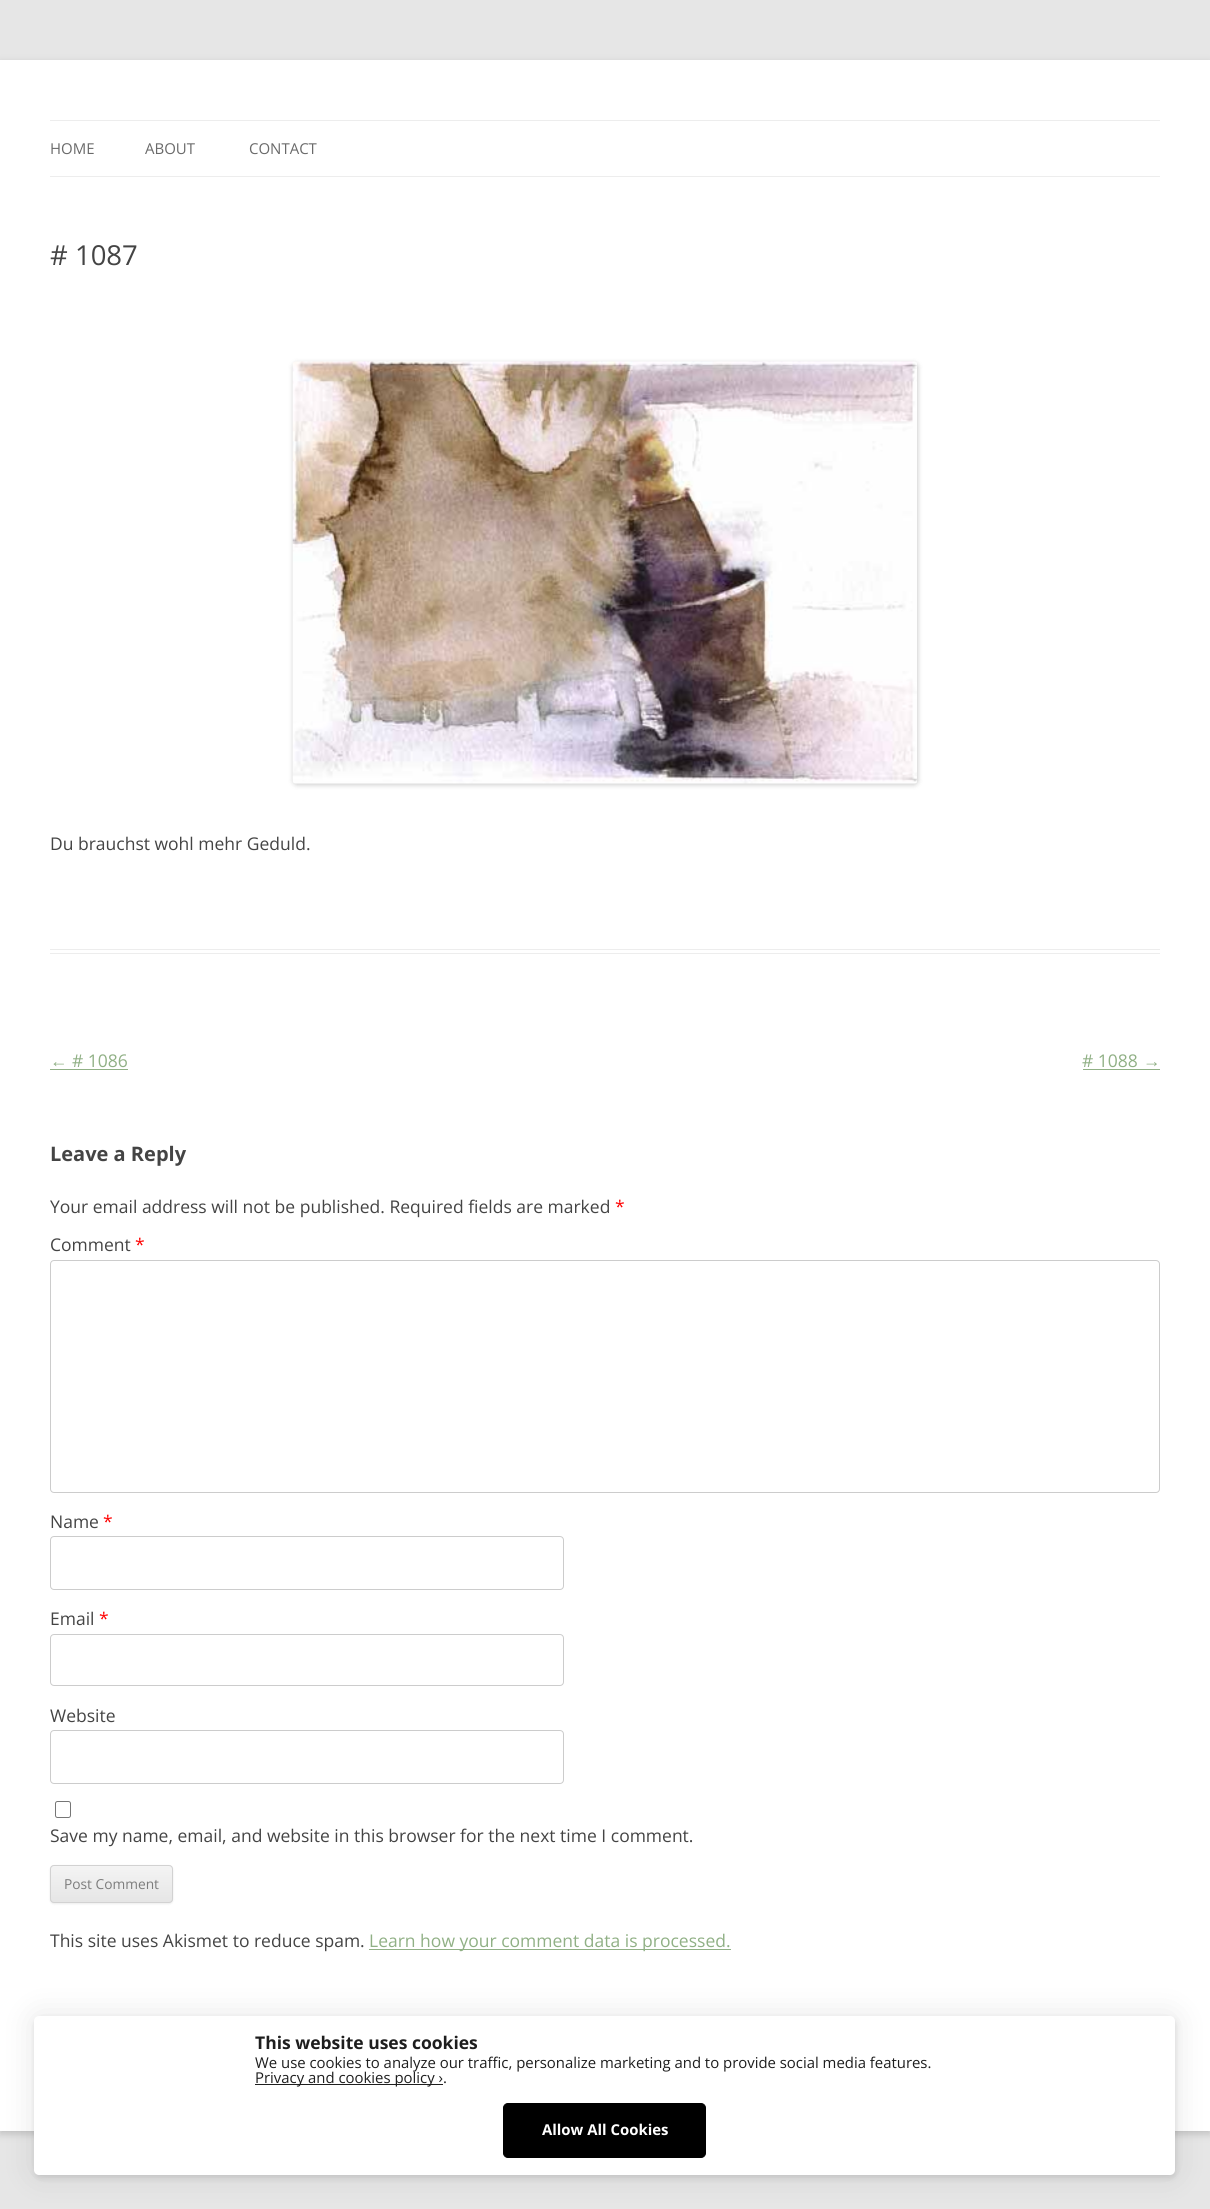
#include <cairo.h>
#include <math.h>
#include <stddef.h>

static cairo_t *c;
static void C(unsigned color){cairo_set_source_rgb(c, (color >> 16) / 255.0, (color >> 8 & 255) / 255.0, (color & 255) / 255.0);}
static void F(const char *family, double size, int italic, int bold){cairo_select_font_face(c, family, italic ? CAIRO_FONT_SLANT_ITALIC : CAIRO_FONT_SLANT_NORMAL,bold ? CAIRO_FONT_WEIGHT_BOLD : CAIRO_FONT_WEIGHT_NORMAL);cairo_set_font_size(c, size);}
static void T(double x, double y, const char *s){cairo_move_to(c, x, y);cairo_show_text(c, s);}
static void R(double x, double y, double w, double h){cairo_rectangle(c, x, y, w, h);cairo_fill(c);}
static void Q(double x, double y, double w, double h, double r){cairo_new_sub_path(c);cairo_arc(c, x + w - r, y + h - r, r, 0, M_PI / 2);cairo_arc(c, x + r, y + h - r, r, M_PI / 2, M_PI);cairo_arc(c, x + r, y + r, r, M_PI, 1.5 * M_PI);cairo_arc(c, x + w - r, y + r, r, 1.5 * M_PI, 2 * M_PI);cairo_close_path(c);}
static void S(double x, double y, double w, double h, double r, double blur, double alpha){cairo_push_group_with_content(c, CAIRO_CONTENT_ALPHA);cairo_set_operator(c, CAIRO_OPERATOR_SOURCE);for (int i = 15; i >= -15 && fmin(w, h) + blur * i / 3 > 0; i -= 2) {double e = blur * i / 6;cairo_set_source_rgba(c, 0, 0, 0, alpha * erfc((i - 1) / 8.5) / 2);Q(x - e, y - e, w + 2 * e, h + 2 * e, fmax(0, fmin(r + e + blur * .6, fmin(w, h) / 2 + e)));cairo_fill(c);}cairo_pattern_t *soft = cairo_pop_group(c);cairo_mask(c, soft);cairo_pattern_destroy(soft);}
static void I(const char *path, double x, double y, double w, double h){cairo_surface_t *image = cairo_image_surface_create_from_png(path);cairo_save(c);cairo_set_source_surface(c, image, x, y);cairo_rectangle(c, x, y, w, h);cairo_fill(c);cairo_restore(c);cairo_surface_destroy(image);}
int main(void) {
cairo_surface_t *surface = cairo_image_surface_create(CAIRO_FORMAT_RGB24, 1210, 2209);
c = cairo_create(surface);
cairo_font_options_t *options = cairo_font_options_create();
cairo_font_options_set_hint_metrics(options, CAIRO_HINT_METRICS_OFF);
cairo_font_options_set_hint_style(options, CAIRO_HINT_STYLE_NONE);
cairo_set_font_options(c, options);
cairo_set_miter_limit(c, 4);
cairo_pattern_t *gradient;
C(0xe6e6e6);
cairo_paint(c);
C(0x646464);
S(0,63,1210,2071,0,4,.3);
C(0xffffff);
R(0,60,1210,2071);
C(0xededed);
R(50,120,1110,1);
R(50,176,1110,1);
F("Open Sans",15,0,0);
C(0x6a6a6a);
T(50,154,"HOME");
T(145,154,"ABOUT");
T(249,154,"CONTACT");
C(0xededed);
R(50,949,1110,1);
R(50,953,1110,1);
F("Open Sans",27.5,0,0);
C(0x444444);
T(50,265,"# 1087");
C(0x000000);
S(293,363,625,422,4,2.5,.2);
I("1.png",292,361,625,423);
F("Open Sans",17.5,0,0);
C(0x444444);
T(50,850,"Du brauchst wohl mehr Geduld.");
F("Liberation Sans",17.5,0,0);
C(0x90b085);
T(50,1067,"←");
R(50,1069,78,1);
F("Open Sans",17.5,0,0);
T(72,1067,"# 1086");
T(1082,1067,"# 1088");
F("Liberation Sans",17.5,0,0);
T(1143,1067,"→");
R(1083,1069,77,1);
F("Open Sans",20,0,1);
C(0x444444);
T(50,1161,"Leave a Reply");
F("Open Sans",17.5,0,0);
T(50,1213,"Your email address will not be published. Required fields are marked");
C(0xff0000);
T(615,1213,"*");
C(0x444444);
T(50,1251,"Comment");
C(0xff0000);
T(135,1251,"*");
Q(50.5,1260.5,1109,232,3.5);
C(0xcccccc);
cairo_set_line_width(c,1);
cairo_stroke(c);
C(0x444444);
T(50,1528,"Name");
C(0xff0000);
T(103,1528,"*");
Q(50.5,1536.5,513,53,3.5);
C(0xcccccc);
cairo_stroke(c);
C(0x444444);
T(50,1625,"Email");
C(0xff0000);
T(99,1625,"*");
Q(50.5,1634.5,513,51,3.5);
C(0xcccccc);
cairo_stroke(c);
C(0x444444);
T(50,1722,"Website");
Q(50.5,1730.5,513,53,3.5);
C(0xcccccc);
cairo_stroke(c);
Q(55.5,1801.5,15,16,2);
C(0x767676);
cairo_stroke(c);
C(0x444444);
T(50,1842,"Save my name, email, and website in this browser for the next time I comment.");
C(0x404040);
S(50,1866,123,38,4,1,.1);
C(0xe6e6e6);
Q(50,1865,123,38,4);
cairo_fill(c);
cairo_save(c);
Q(50,1865,123,38,4);
cairo_clip(c);
gradient = cairo_pattern_create_linear(111,1866,111,1901);
cairo_pattern_add_color_stop_rgba(gradient,0,0.957,0.957,0.957,1);
cairo_pattern_add_color_stop_rgba(gradient,1,0.902,0.902,0.902,1);
cairo_set_source(c,gradient);
cairo_pattern_destroy(gradient);
R(50,1866,123,35);
cairo_restore(c);
Q(50.5,1865.5,122,37,3.5);
C(0xd2d2d2);
cairo_stroke(c);
F("Open Sans",13.75,0,0);
C(0x7c7c7c);
T(64,1889,"Post Comment");
F("Open Sans",17.5,0,0);
C(0x444444);
T(50,1947,"This site uses Akismet to reduce spam.");
C(0x90b085);
R(369,1949,362,1);
T(369,1947,"Learn how your comment data is processed.");
C(0x000000);
S(35,2019,1141,159,5,3,.1);
S(34,2016,1141,159,5,15.5,.1);
C(0xffffff);
Q(34,2016,1141,159,5);
cairo_fill(c);
F("Open Sans",17.5,0,1);
C(0x1e1e1e);
T(255,2049,"This website uses cookies");
F("Open Sans",14.9,0,0);
T(255,2068,"We use cookies to analyze our traffic, personalize marketing and to provide social media features.");
R(255,2084,188,1);
T(255,2083,"Privacy and cookies policy ›.");
C(0x000000);
Q(503.5,2103.5,202,54,4.5);
cairo_fill_preserve(c);
cairo_stroke(c);
F("Open Sans",14.9,0,1);
C(0xffffff);
T(542,2135,"Allow All Cookies");
cairo_surface_write_to_png(surface, "o.png");
cairo_font_options_destroy(options);
cairo_destroy(c);
cairo_surface_destroy(surface);
return 0;
}
